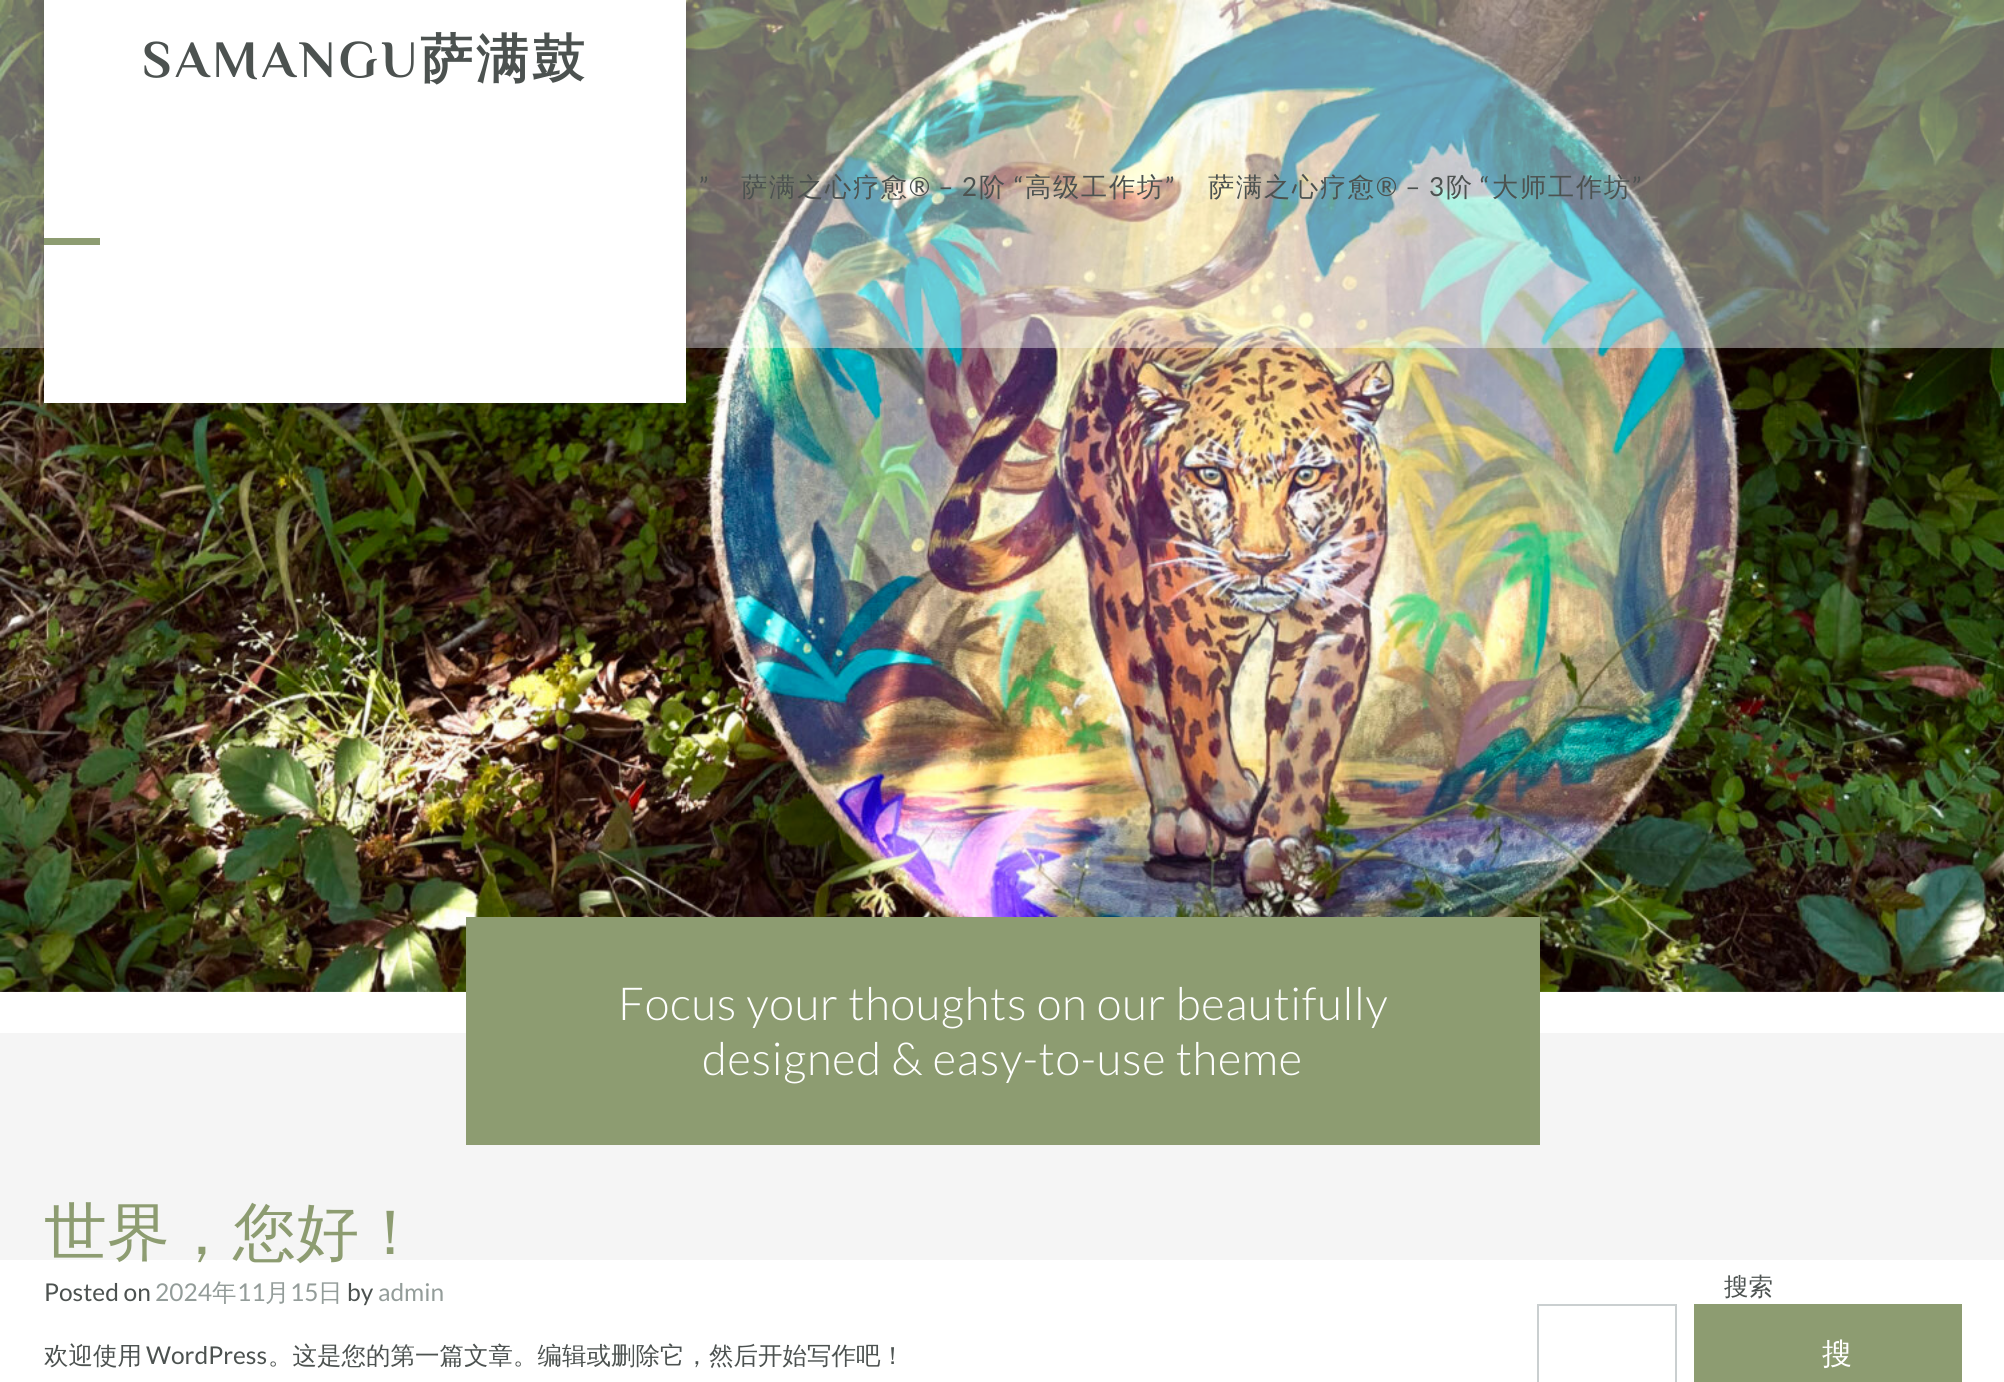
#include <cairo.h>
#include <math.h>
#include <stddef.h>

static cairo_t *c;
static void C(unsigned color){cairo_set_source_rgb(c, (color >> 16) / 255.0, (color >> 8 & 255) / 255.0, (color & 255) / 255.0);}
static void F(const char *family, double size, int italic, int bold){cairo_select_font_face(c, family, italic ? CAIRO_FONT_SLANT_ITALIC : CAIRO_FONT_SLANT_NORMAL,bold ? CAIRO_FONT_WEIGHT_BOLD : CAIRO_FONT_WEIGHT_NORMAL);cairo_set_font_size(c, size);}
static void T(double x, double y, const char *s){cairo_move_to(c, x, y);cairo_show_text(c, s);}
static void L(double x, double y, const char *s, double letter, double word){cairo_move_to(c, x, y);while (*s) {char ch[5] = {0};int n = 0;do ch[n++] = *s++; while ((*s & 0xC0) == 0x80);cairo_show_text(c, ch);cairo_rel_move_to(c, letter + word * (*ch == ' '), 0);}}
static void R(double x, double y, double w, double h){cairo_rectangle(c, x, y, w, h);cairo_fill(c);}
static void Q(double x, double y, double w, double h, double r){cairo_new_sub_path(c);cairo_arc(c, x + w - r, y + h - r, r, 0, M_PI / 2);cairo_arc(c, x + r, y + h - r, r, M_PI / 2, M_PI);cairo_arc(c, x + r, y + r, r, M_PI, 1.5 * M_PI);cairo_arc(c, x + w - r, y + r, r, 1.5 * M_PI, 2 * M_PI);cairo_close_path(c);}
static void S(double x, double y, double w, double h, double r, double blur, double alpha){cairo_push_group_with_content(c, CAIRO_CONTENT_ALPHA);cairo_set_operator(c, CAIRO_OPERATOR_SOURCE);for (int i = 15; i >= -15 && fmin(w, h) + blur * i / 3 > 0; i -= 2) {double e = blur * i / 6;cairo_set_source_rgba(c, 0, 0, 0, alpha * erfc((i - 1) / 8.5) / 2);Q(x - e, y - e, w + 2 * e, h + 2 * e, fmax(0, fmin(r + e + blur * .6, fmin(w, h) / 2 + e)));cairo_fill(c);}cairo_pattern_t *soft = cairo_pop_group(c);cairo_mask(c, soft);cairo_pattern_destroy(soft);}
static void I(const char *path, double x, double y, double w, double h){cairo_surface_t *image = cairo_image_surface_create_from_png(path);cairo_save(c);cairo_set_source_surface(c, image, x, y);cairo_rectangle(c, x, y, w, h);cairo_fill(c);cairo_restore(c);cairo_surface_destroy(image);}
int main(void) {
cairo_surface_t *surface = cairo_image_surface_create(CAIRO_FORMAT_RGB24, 2004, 1382);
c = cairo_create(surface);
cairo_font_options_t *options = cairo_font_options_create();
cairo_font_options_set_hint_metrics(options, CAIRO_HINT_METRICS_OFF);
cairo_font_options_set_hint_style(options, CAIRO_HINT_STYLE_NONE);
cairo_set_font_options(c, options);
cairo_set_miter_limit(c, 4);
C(0xffffff);
cairo_paint(c);
I("1.png",0,0,2004,992);
cairo_set_source_rgba(c,1,1,1,0.4);
R(0,0,2004,348);
C(0x000000);
S(44,2,642,402,0,7,.2);
C(0xffffff);
R(44,0,642,403);
F("Philosopher",52.5,0,1);
C(0x4c5250);
L(142,77,"SAMANGU",3.5,0);
F("WenQuanYi Zen Hei",52.5,0,1);
L(420,77,"萨满鼓",3.5,0);
F("Lato",26.25,0,0);
L(699,196,"”",1.75,0);
F("WenQuanYi Zen Hei Medium",26.25,0,0);
L(741,196,"萨满之心疗愈",1.75,0);
F("Lato",26.25,0,0);
L(909,196,"® – 2",1.75,0);
F("WenQuanYi Zen Hei Medium",26.25,0,0);
L(979,196,"阶",1.75,0);
F("Lato",26.25,0,0);
L(1014,196,"“",1.75,0);
F("WenQuanYi Zen Hei Medium",26.25,0,0);
L(1025,196,"高级工作坊",1.75,0);
F("Lato",26.25,0,0);
L(1165,196,"”",1.75,0);
F("WenQuanYi Zen Hei Medium",26.25,0,0);
L(1208,196,"萨满之心疗愈",1.75,0);
F("Lato",26.25,0,0);
L(1376,196,"® – 3",1.75,0);
F("WenQuanYi Zen Hei Medium",26.25,0,0);
L(1446,196,"阶",1.75,0);
F("Lato",26.25,0,0);
L(1480,196,"“",1.75,0);
F("WenQuanYi Zen Hei Medium",26.25,0,0);
L(1492,196,"大师工作坊",1.75,0);
F("Lato",26.25,0,0);
L(1632,196,"”",1.75,0);
C(0x8d9c71);
R(44,238,56,7);
C(0xf5f5f5);
R(0,1033,2004,227);
C(0x8d9c71);
R(466,917,1074,228);
F("Lato Light",45.5,0,0);
C(0xffffff);
L(618,1020,"Focus your thoughts on our beautifully",.7,0);
L(702,1075,"designed & easy-to-use theme",.7,0);
F("WenQuanYi Zen Hei Medium",63,0,0);
C(0x8d9c71);
T(44,1254,"世界，您好！");
F("Lato",24.5,0,0);
C(0x4c5250);
T(44,1301,"Posted on");
C(0x939c99);
T(155,1301,"2024");
F("WenQuanYi Zen Hei Medium",24.5,0,0);
T(212,1301,"年");
F("Lato",24.5,0,0);
T(237,1301,"11");
F("WenQuanYi Zen Hei Medium",24.5,0,0);
T(265,1301,"月");
F("Lato",24.5,0,0);
T(290,1301,"15");
F("WenQuanYi Zen Hei Medium",24.5,0,0);
T(318,1301,"日");
F("Lato",24.5,0,0);
C(0x4c5250);
T(347,1301,"by");
C(0x939c99);
T(378,1301,"admin");
F("WenQuanYi Zen Hei Medium",24.5,0,0);
C(0x4c5250);
T(44,1364,"欢迎使用");
F("Lato",24.5,0,0);
T(146,1364,"WordPress");
F("WenQuanYi Zen Hei Medium",24.5,0,0);
T(268,1364,"。这是您的第一篇文章。编辑或删除它，然后开始写作吧！");
T(1724,1295,"搜索");
cairo_rectangle(c,1538,1305,138,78);
C(0xcacfd0);
cairo_stroke(c);
C(0x8d9c71);
R(1694,1304,268,78);
F("WenQuanYi Zen Hei Medium",30,0,0);
C(0xffffff);
T(1822,1364,"搜");
cairo_surface_write_to_png(surface, "o.png");
cairo_font_options_destroy(options);
cairo_destroy(c);
cairo_surface_destroy(surface);
return 0;
}
